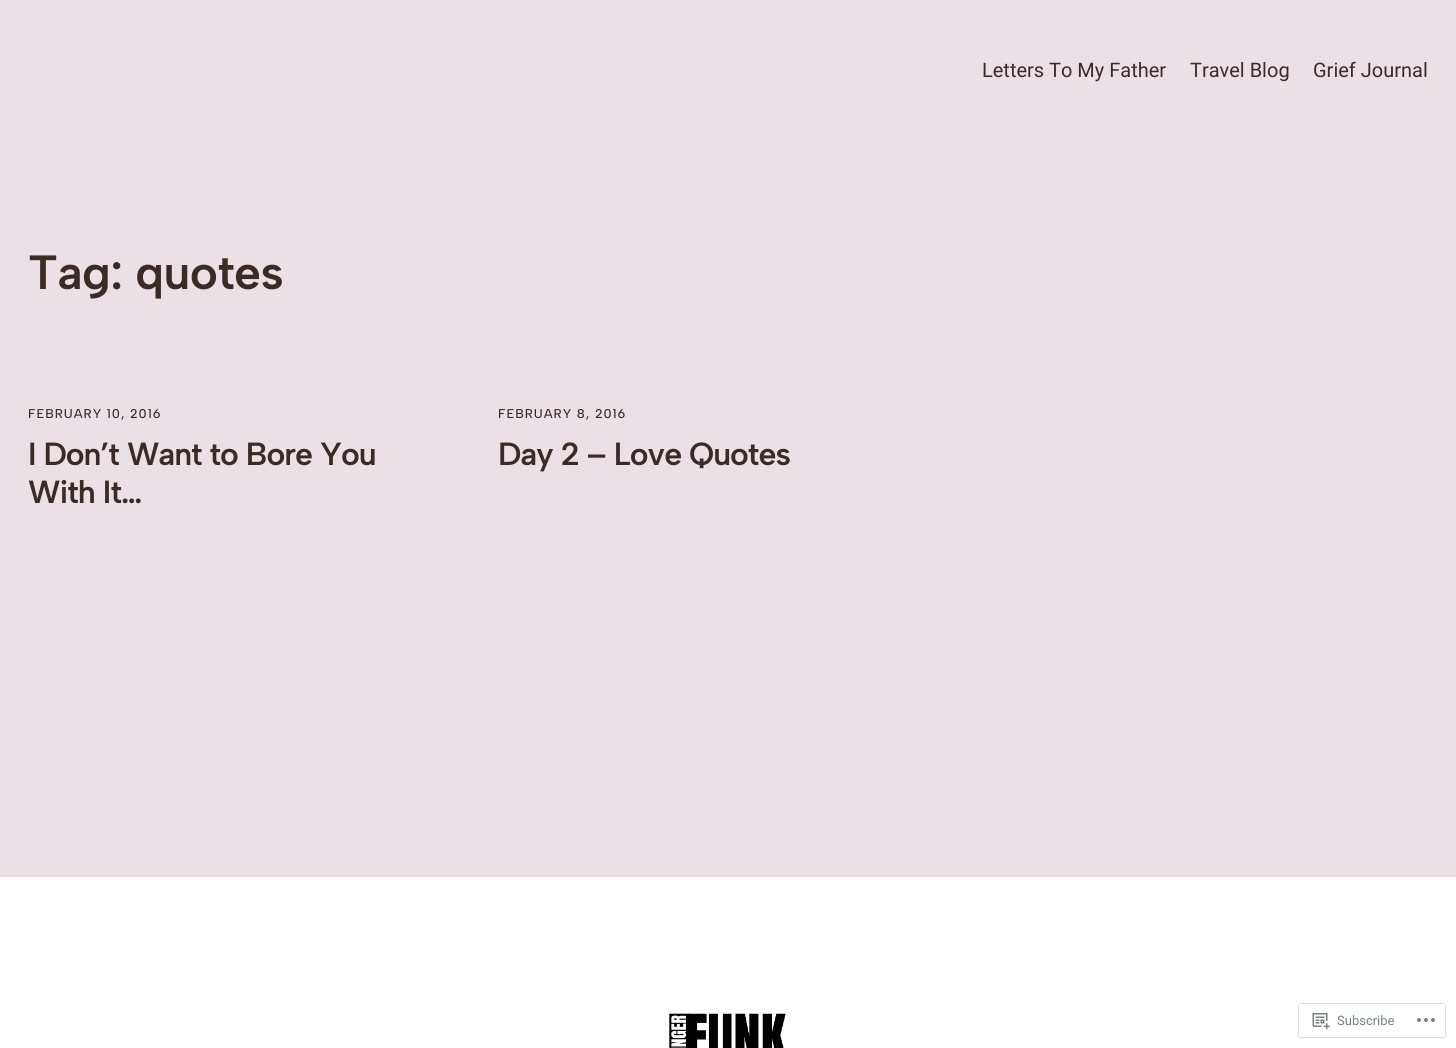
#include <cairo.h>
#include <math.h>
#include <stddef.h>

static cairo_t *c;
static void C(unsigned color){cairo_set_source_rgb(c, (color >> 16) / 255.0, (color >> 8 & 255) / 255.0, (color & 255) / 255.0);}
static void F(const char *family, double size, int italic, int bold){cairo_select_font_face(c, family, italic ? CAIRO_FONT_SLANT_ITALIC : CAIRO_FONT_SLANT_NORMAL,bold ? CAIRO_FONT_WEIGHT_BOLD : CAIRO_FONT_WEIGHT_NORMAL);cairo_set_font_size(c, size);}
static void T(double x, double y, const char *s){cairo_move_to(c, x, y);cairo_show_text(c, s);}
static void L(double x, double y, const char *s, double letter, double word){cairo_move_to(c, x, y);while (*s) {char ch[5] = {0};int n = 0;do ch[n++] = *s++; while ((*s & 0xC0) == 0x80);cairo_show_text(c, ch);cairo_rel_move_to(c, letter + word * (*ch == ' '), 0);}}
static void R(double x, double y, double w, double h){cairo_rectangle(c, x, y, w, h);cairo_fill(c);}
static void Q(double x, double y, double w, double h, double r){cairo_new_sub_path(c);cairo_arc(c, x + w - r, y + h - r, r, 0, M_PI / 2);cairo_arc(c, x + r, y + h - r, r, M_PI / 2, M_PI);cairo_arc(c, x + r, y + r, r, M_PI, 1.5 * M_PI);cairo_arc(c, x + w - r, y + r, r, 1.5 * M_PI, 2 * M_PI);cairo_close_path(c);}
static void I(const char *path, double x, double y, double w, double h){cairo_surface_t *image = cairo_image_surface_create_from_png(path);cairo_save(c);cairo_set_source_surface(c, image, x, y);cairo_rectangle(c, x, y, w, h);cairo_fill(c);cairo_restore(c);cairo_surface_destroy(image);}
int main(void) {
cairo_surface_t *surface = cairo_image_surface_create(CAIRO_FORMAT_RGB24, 1456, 1048);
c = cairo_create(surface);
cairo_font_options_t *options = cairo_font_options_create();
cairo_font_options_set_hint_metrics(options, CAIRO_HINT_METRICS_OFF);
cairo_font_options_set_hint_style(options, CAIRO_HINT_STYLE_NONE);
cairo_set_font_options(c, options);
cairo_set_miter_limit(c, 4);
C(0xe9e1e5);
cairo_paint(c);
F("Roboto",20,0,0);
C(0x3b2b27);
T(982,77,"Letters To My Father");
T(1190,77,"Travel Blog");
T(1313,77,"Grief Journal");
F("Albert Sans SemiBold",48,0,0);
L(28,289,"Tag: quotes",-.6,0);
F("Albert Sans Medium",12.75,0,0);
L(28,418,"FEBRUARY 10, 2016",1,0);
F("Albert Sans SemiBold",32,0,0);
L(28,465,"I Don’t Want to Bore You",-1,0);
L(28,503,"With It…",-1,0);
F("Albert Sans Medium",12.75,0,0);
L(498,418,"FEBRUARY 8, 2016",1,0);
F("Albert Sans SemiBold",32,0,0);
L(498,465,"Day 2 – Love Quotes",-1,0);
C(0xffffff);
R(0,877,1456,171);
I("1.png",669,1013,117,35);
Q(1298.5,1003.5,147,34,2.5);
C(0xdddddf);
cairo_set_line_width(c,1);
cairo_stroke(c);
I("2.png",1312,1013,18,17);
F("Roboto",13,0,0);
C(0x7b7f85);
T(1337,1025,"Subscribe");
I("3.png",1417,1018,18,4);
cairo_surface_write_to_png(surface, "o.png");
cairo_font_options_destroy(options);
cairo_destroy(c);
cairo_surface_destroy(surface);
return 0;
}
